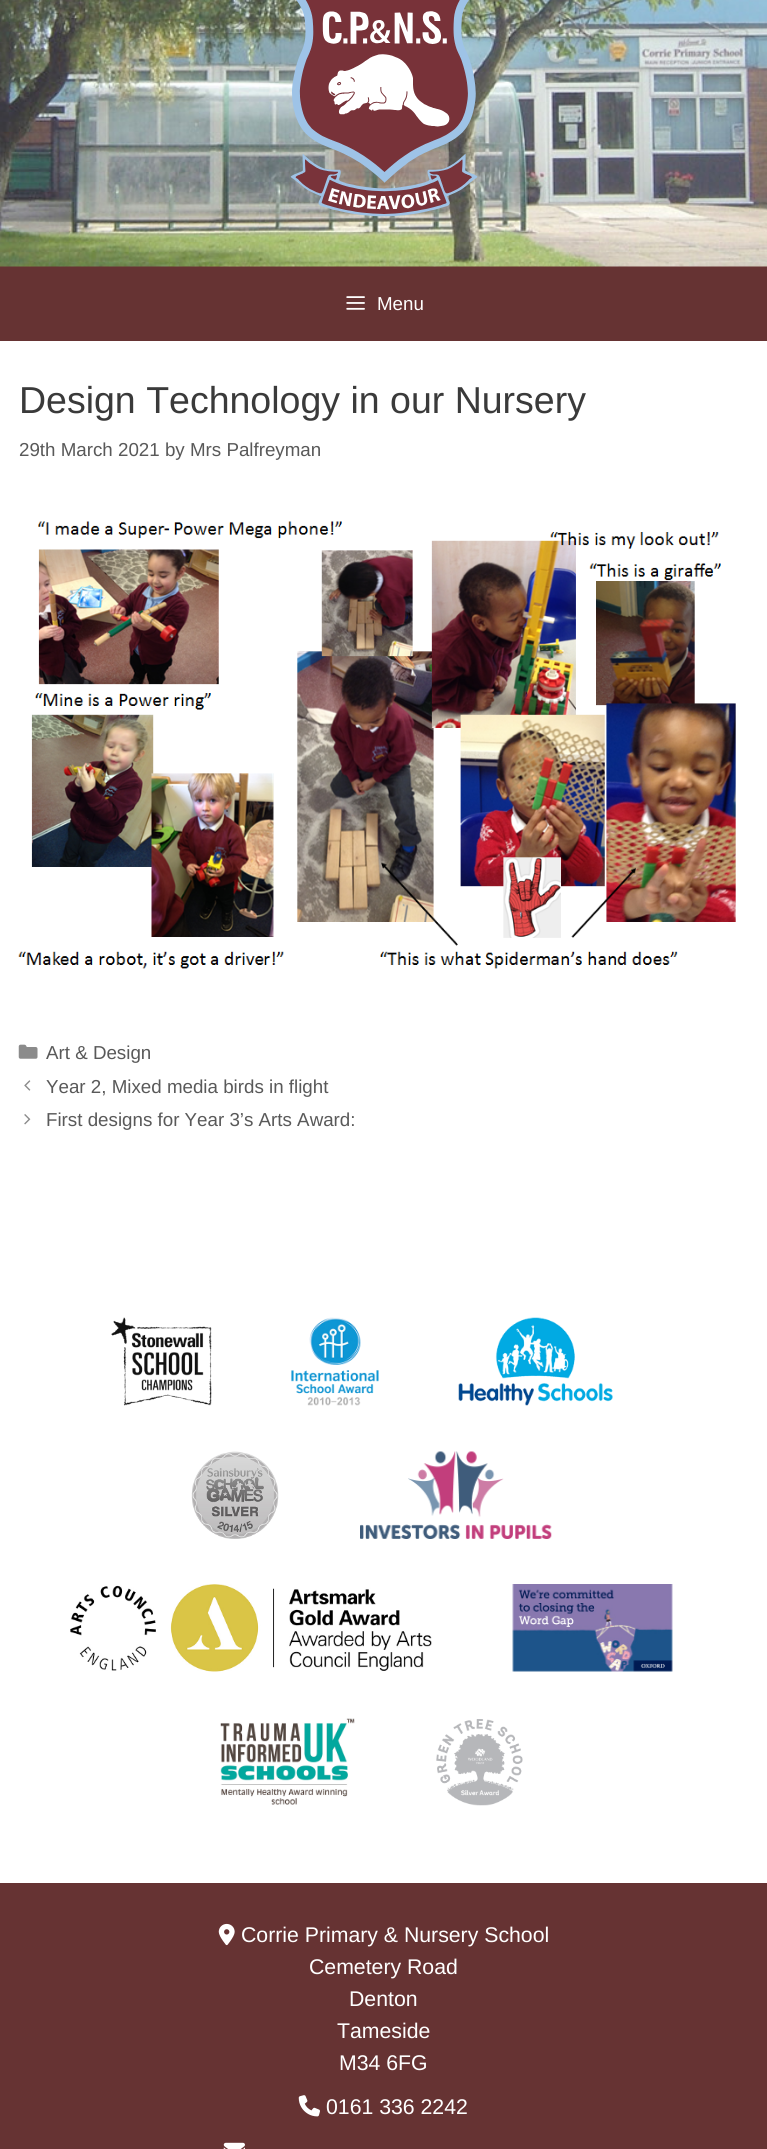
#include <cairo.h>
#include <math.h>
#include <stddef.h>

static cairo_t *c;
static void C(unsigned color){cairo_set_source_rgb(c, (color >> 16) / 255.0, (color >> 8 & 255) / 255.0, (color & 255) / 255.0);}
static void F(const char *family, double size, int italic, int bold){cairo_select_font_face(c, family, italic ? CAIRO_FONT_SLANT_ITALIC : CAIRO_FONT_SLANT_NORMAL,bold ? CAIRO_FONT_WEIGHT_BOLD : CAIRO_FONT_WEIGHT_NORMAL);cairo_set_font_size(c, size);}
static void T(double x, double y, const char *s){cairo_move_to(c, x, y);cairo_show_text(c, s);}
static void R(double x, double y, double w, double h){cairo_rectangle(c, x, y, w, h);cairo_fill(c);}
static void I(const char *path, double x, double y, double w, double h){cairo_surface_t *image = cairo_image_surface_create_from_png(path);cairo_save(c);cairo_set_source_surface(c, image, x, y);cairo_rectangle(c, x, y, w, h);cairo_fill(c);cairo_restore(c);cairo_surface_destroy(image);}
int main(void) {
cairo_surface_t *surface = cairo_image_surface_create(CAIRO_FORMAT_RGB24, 767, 2149);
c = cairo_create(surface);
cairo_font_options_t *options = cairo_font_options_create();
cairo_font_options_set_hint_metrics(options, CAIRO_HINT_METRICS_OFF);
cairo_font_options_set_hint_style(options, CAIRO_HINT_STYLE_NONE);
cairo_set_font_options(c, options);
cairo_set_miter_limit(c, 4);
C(0x663333);
cairo_paint(c);
I("1.png",0,0,767,267);
I("2.png",290,0,188,217);
I("3.png",346,296,19,14);
F("Arimo",18.75,0,0);
C(0xffffff);
T(377,310,"Menu");
R(0,341,767,1542);
F("Arimo",37.5,0,0);
C(0x3a3a3a);
T(19,413,"Design Technology in our Nursery");
F("Arimo",18.75,0,0);
C(0x595959);
T(19,456,"29th March 2021 by Mrs Palfreyman");
I("4.png",18,521,718,448);
I("5.png",18,1044,20,15);
T(46,1059,"Art & Design");
I("6.png",24,1080,7,11);
T(46,1093,"Year 2, Mixed media birds in flight");
I("7.png",24,1114,7,11);
T(46,1126,"First designs for Year 3’s Arts Award:");
I("8.png",111,1317,101,89);
I("9.png",291,1317,88,89);
I("10.png",458,1317,155,89);
I("11.png",191,1451,88,88);
I("12.png",360,1451,192,88);
I("13.png",70,1584,362,88);
I("14.png",512,1584,161,88);
I("15.png",220,1718,135,87);
I("16.png",436,1719,87,87);
I("17.png",218,1923,17,23);
F("Arimo",21.25,0,0);
C(0xffffff);
T(241,1942,"Corrie Primary & Nursery School");
T(309,1974,"Cemetery Road");
T(349,2006,"Denton");
T(337,2038,"Tameside");
T(339,2070,"M34 6FG");
I("18.png",298,2095,22,22);
T(326,2114,"0161 336 2242");
I("19.png",223,2142,22,7);
cairo_surface_write_to_png(surface, "o.png");
cairo_font_options_destroy(options);
cairo_destroy(c);
cairo_surface_destroy(surface);
return 0;
}
